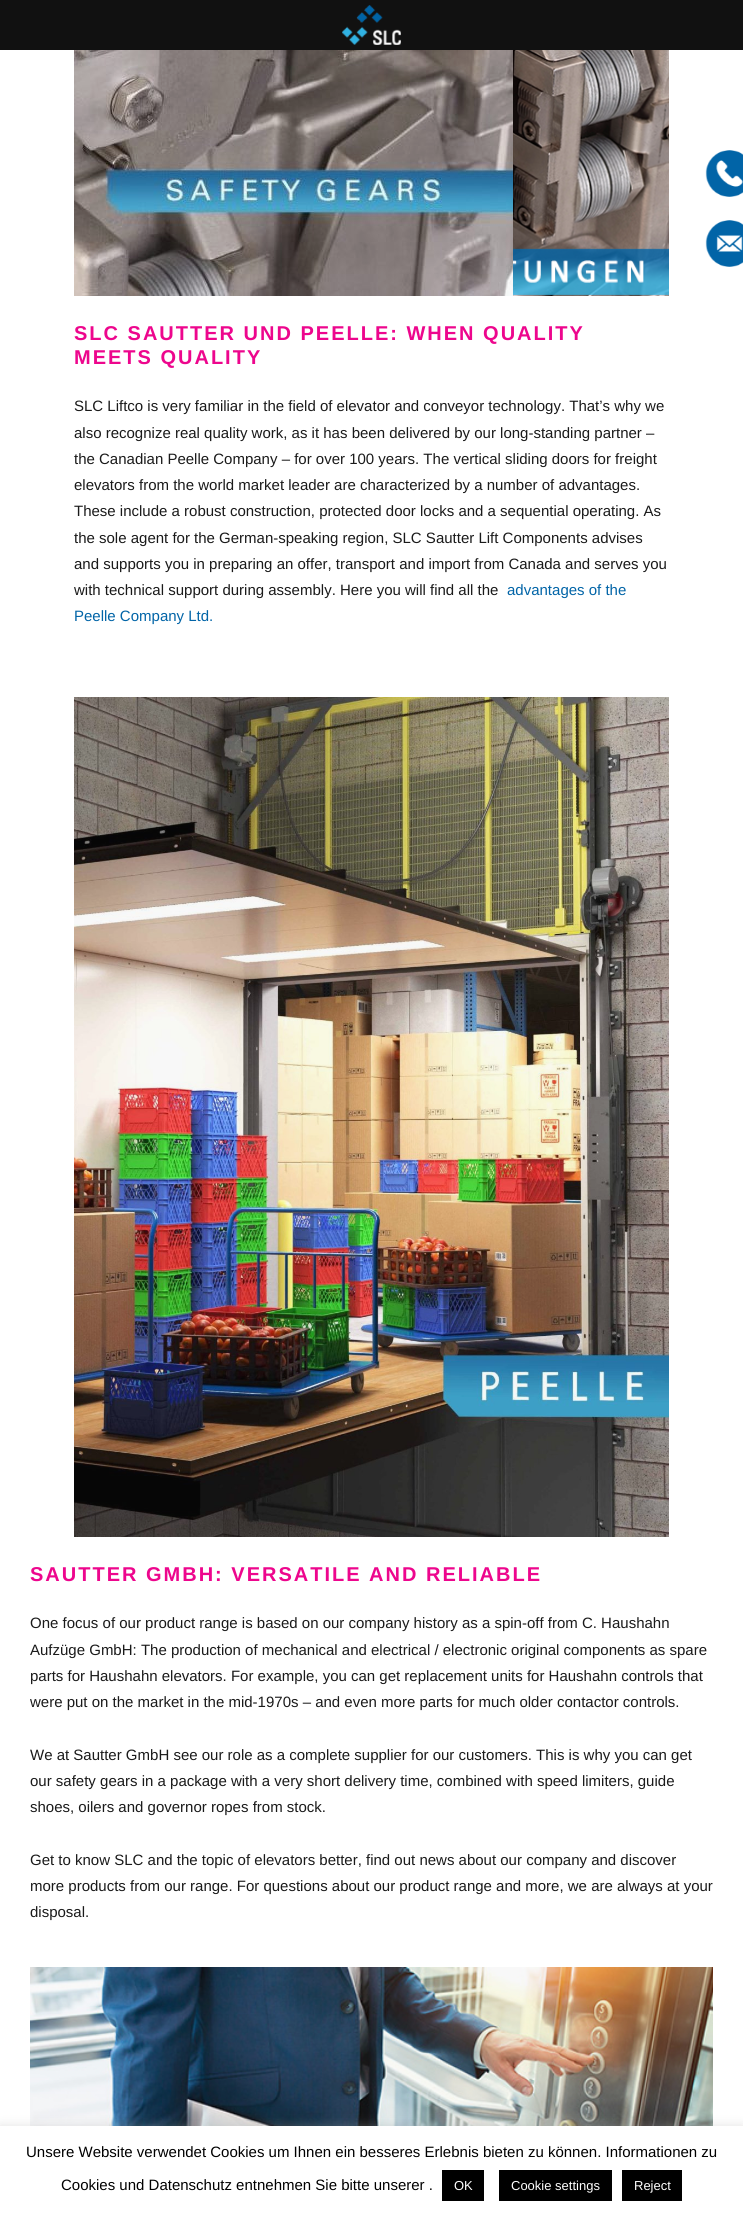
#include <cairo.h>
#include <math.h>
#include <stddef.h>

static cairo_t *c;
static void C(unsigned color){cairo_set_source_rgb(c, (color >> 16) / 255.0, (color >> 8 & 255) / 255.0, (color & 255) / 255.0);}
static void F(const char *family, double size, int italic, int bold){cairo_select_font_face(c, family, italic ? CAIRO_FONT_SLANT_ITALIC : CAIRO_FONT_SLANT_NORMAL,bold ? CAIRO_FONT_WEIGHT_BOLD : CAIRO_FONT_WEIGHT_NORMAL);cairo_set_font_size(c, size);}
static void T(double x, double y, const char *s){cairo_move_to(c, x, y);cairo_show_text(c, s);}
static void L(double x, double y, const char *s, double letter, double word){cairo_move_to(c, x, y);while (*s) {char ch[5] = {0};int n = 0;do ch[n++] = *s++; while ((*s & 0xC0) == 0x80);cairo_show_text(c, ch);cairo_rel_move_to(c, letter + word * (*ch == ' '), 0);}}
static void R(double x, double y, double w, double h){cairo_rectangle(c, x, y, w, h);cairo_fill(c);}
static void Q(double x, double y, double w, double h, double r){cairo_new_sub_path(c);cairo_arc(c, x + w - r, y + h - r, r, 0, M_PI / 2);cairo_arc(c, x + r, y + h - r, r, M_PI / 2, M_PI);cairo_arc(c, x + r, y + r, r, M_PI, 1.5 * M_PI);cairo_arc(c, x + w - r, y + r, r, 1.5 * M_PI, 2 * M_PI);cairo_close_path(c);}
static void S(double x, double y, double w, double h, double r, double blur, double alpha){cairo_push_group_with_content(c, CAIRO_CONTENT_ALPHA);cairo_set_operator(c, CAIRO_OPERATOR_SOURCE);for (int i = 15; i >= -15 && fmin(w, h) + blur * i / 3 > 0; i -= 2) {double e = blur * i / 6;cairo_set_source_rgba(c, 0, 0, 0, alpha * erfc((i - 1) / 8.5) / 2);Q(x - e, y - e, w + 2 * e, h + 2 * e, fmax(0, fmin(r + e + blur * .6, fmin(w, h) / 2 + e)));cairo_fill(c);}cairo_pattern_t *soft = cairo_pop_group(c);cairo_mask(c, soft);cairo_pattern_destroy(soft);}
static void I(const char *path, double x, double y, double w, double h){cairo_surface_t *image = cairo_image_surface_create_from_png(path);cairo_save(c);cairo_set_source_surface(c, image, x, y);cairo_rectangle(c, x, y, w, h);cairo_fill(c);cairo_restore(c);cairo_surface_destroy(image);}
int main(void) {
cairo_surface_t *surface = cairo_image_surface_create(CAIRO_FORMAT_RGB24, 743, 2218);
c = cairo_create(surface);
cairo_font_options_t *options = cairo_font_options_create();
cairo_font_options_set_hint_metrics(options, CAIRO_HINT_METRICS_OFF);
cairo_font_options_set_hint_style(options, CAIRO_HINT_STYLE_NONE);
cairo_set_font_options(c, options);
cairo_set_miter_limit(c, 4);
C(0xffffff);
cairo_paint(c);
C(0x111111);
R(0,0,743,50);
I("1.png",342,5,59,40);
I("2.png",705,150,38,47);
I("3.png",705,220,38,47);
I("4.png",513,50,156,246);
I("5.png",74,50,439,246);
F("Liberation Sans",20,0,1);
C(0xed068d);
L(74,340,"SLC SAUTTER UND PEELLE: WHEN QUALITY",2,0);
L(74,364,"MEETS QUALITY",2,0);
F("Liberation Sans",15,0,0);
C(0x1a1a1a);
T(74,411,"SLC Liftco is very familiar in the field of elevator and conveyor technology. That’s why we");
T(74,438,"also recognize real quality work, as it has been delivered by our long-standing partner –");
T(74,464,"the Canadian Peelle Company – for over 100 years. The vertical sliding doors for freight");
T(74,490,"elevators from the world market leader are characterized by a number of advantages.");
T(74,516,"These include a robust construction, protected door locks and a sequential operating. As");
T(74,543,"the sole agent for the German-speaking region, SLC Sautter Lift Components advises");
T(74,569,"and supports you in preparing an offer, transport and import from Canada and serves you");
T(74,595,"with technical support during assembly. Here you will find all the");
C(0x0164a7);
T(507,595,"advantages of the");
T(74,621,"Peelle Company Ltd.");
I("6.png",74,697,595,840);
F("Liberation Sans",20,0,1);
C(0xed068d);
L(30,1581,"SAUTTER GMBH: VERSATILE AND RELIABLE",2,0);
F("Liberation Sans",15,0,0);
C(0x1a1a1a);
T(30,1628,"One focus of our product range is based on our company history as a spin-off from C. Haushahn");
T(30,1655,"Aufzüge GmbH: The production of mechanical and electrical / electronic original components as spare");
T(30,1681,"parts for Haushahn elevators. For example, you can get replacement units for Haushahn controls that");
T(30,1707,"were put on the market in the mid-1970s – and even more parts for much older contactor controls.");
T(30,1760,"We at Sautter GmbH see our role as a complete supplier for our customers. This is why you can get");
T(30,1786,"our safety gears in a package with a very short delivery time, combined with speed limiters, guide");
T(30,1812,"shoes, oilers and governor ropes from stock.");
T(30,1865,"Get to know SLC and the topic of elevators better, find out news about our company and discover");
T(30,1891,"more products from our range. For questions about our product range and more, we are always at your");
T(30,1917,"disposal.");
I("7.png",30,1967,683,159);
C(0xacabab);
S(0,2125,743,92,0,5,.3);
C(0xffffff);
R(0,2126,743,92);
C(0x000000);
T(26,2157,"Unsere Website verwendet Cookies um Ihnen ein besseres Erlebnis bieten zu können. Informationen zu");
T(61,2190,"Cookies und Datenschutz entnehmen Sie bitte unserer .");
R(442,2170,42,31);
F("Liberation Sans",13,0,0);
C(0xffffff);
T(454,2190,"OK");
C(0x000000);
R(499,2170,113,31);
C(0xffffff);
T(511,2190,"Cookie settings");
C(0x000000);
R(622,2170,60,31);
C(0xffffff);
T(634,2190,"Reject");
cairo_surface_write_to_png(surface, "o.png");
cairo_font_options_destroy(options);
cairo_destroy(c);
cairo_surface_destroy(surface);
return 0;
}
